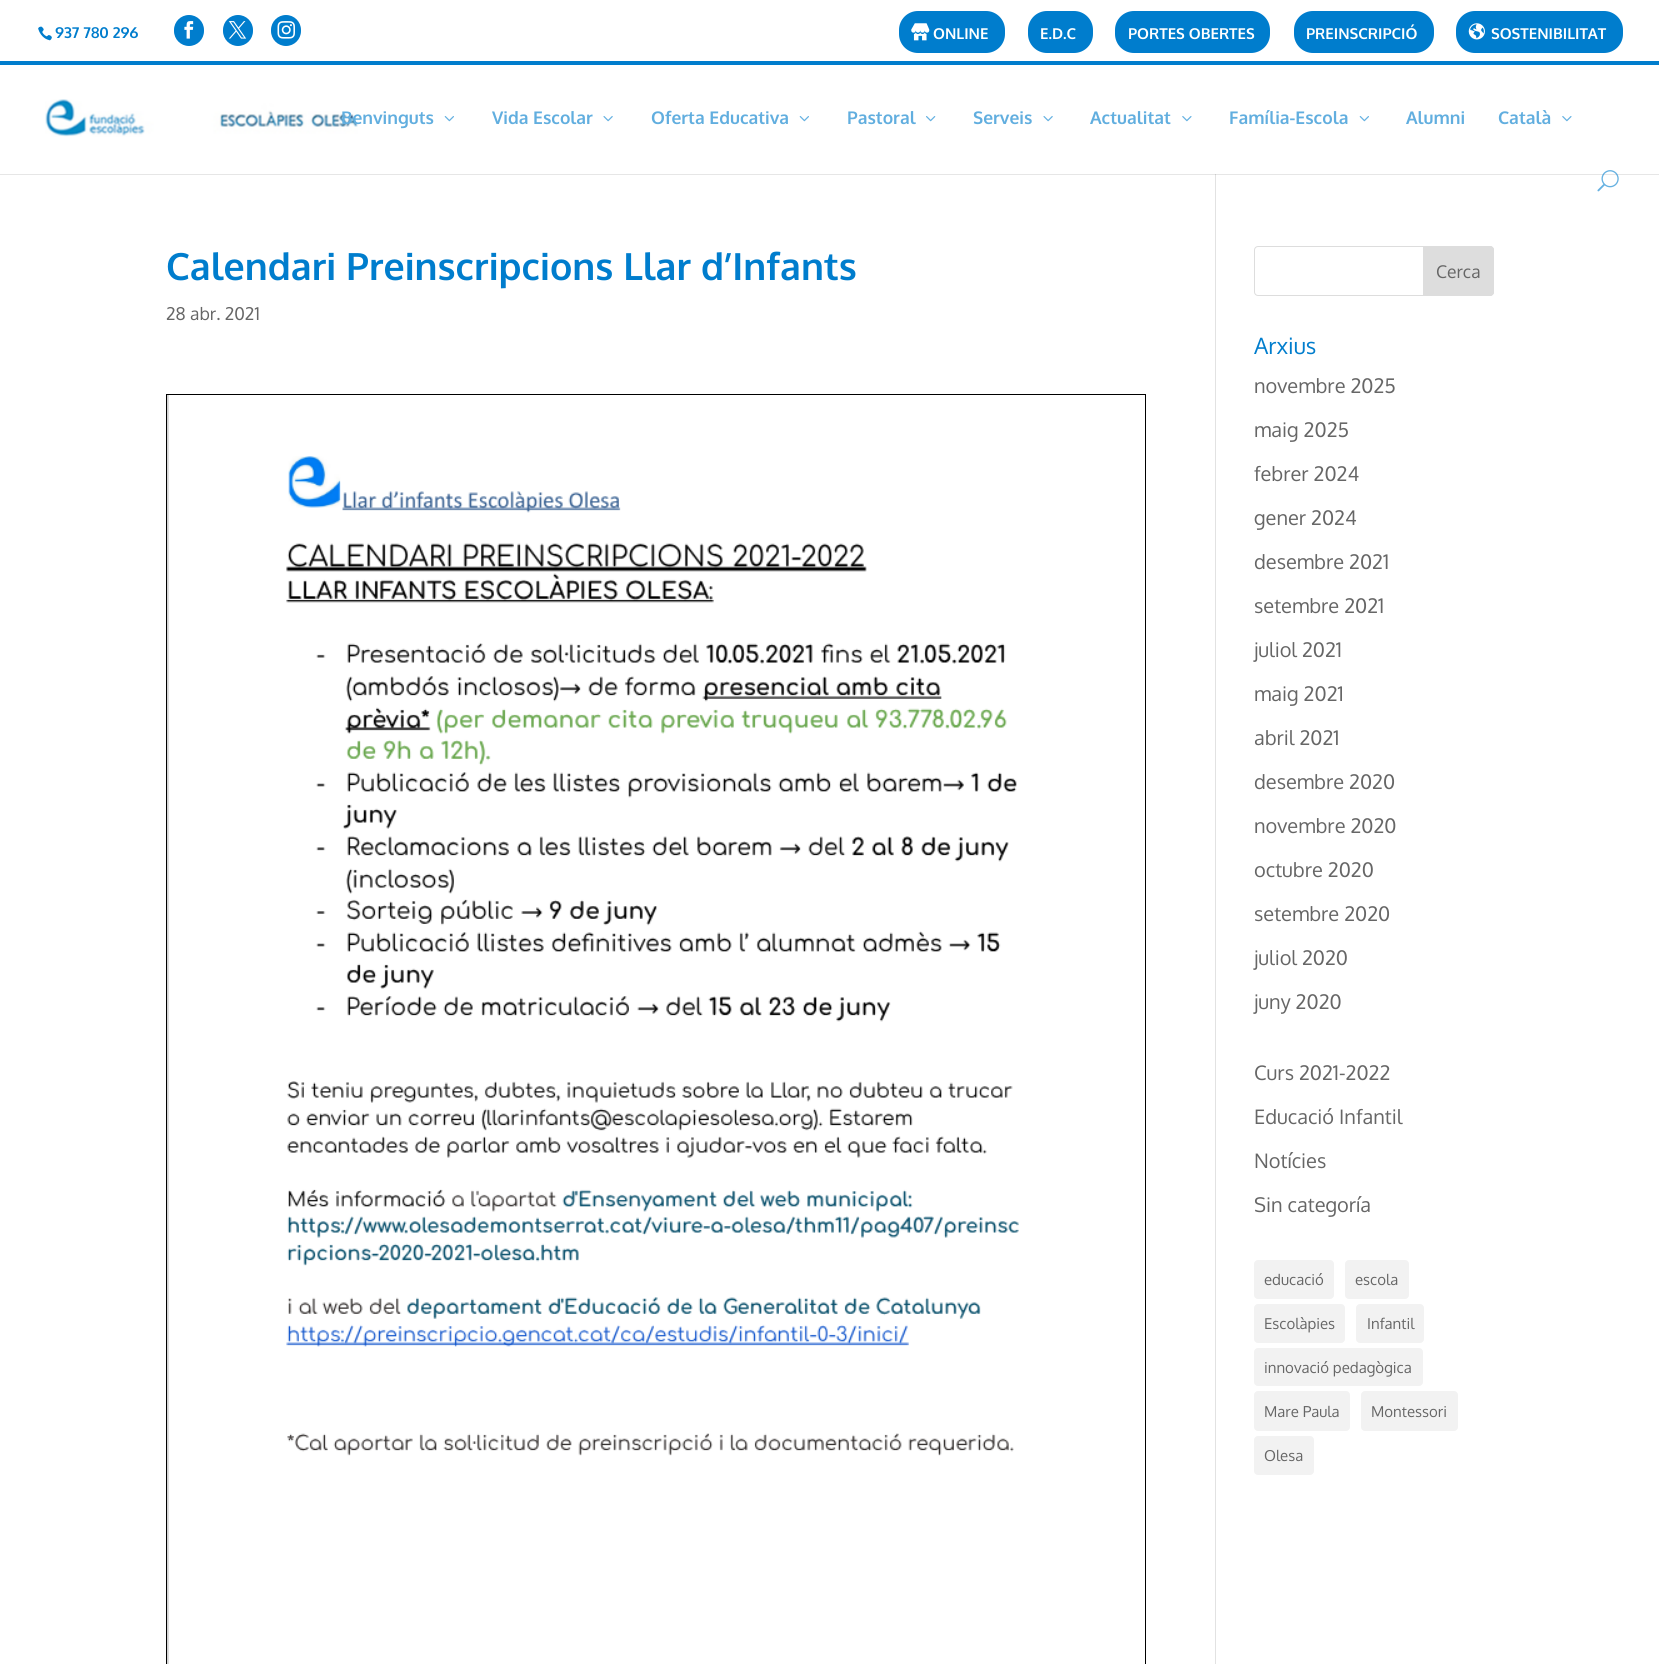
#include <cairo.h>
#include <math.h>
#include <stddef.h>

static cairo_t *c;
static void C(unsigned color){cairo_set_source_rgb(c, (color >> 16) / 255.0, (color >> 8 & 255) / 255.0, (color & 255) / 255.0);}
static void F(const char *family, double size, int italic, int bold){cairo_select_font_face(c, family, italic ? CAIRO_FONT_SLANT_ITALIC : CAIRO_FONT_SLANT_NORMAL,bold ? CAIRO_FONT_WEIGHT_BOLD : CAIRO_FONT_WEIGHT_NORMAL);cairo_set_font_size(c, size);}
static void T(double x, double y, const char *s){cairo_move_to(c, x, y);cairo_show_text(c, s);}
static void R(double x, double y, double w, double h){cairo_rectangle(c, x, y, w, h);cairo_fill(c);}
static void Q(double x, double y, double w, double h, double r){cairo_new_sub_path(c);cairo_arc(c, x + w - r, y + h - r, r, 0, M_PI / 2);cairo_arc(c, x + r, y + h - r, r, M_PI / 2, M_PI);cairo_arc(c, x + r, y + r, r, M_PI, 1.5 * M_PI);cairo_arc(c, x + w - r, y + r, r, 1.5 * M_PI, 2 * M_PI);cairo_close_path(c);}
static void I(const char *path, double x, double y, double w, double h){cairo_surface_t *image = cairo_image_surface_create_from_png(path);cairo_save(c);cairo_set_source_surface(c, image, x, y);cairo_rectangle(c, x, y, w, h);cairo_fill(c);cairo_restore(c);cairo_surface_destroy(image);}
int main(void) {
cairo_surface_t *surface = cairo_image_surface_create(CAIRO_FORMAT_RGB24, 1659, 1664);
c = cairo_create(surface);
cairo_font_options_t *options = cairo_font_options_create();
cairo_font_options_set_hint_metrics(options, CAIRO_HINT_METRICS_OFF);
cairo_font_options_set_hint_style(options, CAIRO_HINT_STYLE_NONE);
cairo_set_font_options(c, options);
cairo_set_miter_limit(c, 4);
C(0xffffff);
cairo_paint(c);
C(0xe6e6e6);
R(0,174,1659,1);
C(0x007dcd);
R(0,61,1659,4);
I("1.png",38,26,14,15);
F("Oxygen",15,0,1);
T(55,38,"937 780 296");
Q(174,15,30,31,15);
cairo_fill(c);
I("2.png",184,21,10,18);
Q(223,15,30,31,15);
cairo_fill(c);
I("3.png",228,21,19,18);
Q(271,15,30,31,15);
cairo_fill(c);
I("4.png",277,21,18,18);
Q(899,11,106,42,19);
cairo_fill(c);
I("5.png",911,23,19,18);
C(0xffffff);
T(933,39,"ONLINE");
C(0x007dcd);
Q(1028,11,65,42,19);
cairo_fill(c);
C(0xffffff);
T(1040,39,"E.D.C");
C(0x007dcd);
Q(1115,11,155,42,19);
cairo_fill(c);
C(0xffffff);
T(1128,39,"PORTES OBERTES");
C(0x007dcd);
Q(1294,11,140,42,19);
cairo_fill(c);
C(0xffffff);
T(1306,39,"PREINSCRIPCIÓ");
C(0x007dcd);
Q(1456,11,167,42,19);
cairo_fill(c);
I("6.png",1468,23,17,17);
C(0xffffff);
T(1491,39,"SOSTENIBILITAT");
I("7.png",45,99,313,38);
F("Oxygen",17.5,0,1);
C(0x61aedf);
T(341,124,"Benvinguts");
I("8.png",444,116,10,6);
T(492,124,"Vida Escolar");
I("9.png",603,116,10,6);
T(651,124,"Oferta Educativa");
I("8.png",799,116,10,6);
T(847,124,"Pastoral");
I("10.png",926,116,10,6);
T(973,124,"Serveis");
I("9.png",1043,116,10,6);
T(1090,124,"Actualitat");
I("11.png",1182,116,10,6);
T(1229,124,"Família-Escola");
I("8.png",1359,116,10,6);
T(1406,124,"Alumni");
T(1498,124,"Català");
I("11.png",1562,116,10,6);
I("12.png",1597,170,22,22);
C(0xe2e2e2);
R(1215,174,1,1490);
C(0xcbcbcb);
R(1215,174,1,1);
F("Oxygen",37.5,0,1);
C(0x007dcd);
T(166,280,"Calendari Preinscripcions Llar d’Infants");
F("Oxygen",17.5,0,0);
C(0x666666);
T(166,320,"28 abr. 2021");
C(0xd3d3d3);
R(167,395,2,1269);
cairo_rectangle(c,166.5,394.5,979,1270);
C(0x000000);
cairo_set_line_width(c,1);
cairo_stroke(c);
I("13.png",168,395,851,1269);
Q(1254.5,246.5,239,49,3.5);
C(0xdddddd);
cairo_stroke(c);
cairo_new_path(c);
cairo_move_to(c,1423.5,246.5);
cairo_line_to(c,1490,246.5);
cairo_curve_to(c,1492,246.5,1493.5,248,1493.5,250);
cairo_line_to(c,1493.5,292);
cairo_curve_to(c,1493.5,294,1492,295.5,1490,295.5);
cairo_line_to(c,1423.5,295.5);
cairo_close_path(c);
cairo_fill_preserve(c);
cairo_stroke(c);
C(0x666666);
T(1436,278,"Cerca");
F("Oxygen",22.5,0,0);
C(0x007dcd);
T(1254,354,"Arxius");
F("Oxygen",20,0,0);
C(0x666666);
T(1254,393,"novembre 2025");
T(1254,437,"maig 2025");
T(1254,481,"febrer 2024");
T(1254,525,"gener 2024");
T(1254,569,"desembre 2021");
T(1254,613,"setembre 2021");
T(1254,657,"juliol 2021");
T(1254,701,"maig 2021");
T(1254,745,"abril 2021");
T(1254,789,"desembre 2020");
T(1254,833,"novembre 2020");
T(1254,877,"octubre 2020");
T(1254,921,"setembre 2020");
T(1254,965,"juliol 2020");
T(1254,1009,"juny 2020");
T(1254,1080,"Curs 2021-2022");
T(1254,1124,"Educació Infantil");
T(1254,1168,"Notícies");
T(1254,1212,"Sin categoría");
C(0xf2f2f2);
Q(1254,1260,80,39,4);
cairo_fill(c);
F("Oxygen",15,0,0);
C(0x666666);
T(1264,1285,"educació");
C(0xf2f2f2);
Q(1345,1260,64,39,4);
cairo_fill(c);
C(0x666666);
T(1355,1285,"escola");
C(0xf2f2f2);
Q(1254,1304,91,39,4);
cairo_fill(c);
C(0x666666);
T(1264,1329,"Escolàpies");
C(0xf2f2f2);
Q(1356,1304,68,39,4);
cairo_fill(c);
C(0x666666);
T(1367,1329,"Infantil");
C(0xf2f2f2);
Q(1254,1348,169,38,4);
cairo_fill(c);
C(0x666666);
T(1264,1373,"innovació pedagògica");
C(0xf2f2f2);
Q(1254,1391,96,40,4);
cairo_fill(c);
C(0x666666);
T(1264,1417,"Mare Paula");
C(0xf2f2f2);
Q(1361,1391,97,40,4);
cairo_fill(c);
C(0x666666);
T(1371,1417,"Montessori");
C(0xf2f2f2);
Q(1254,1436,60,39,4);
cairo_fill(c);
C(0x666666);
T(1264,1461,"Olesa");
cairo_surface_write_to_png(surface, "o.png");
cairo_font_options_destroy(options);
cairo_destroy(c);
cairo_surface_destroy(surface);
return 0;
}
